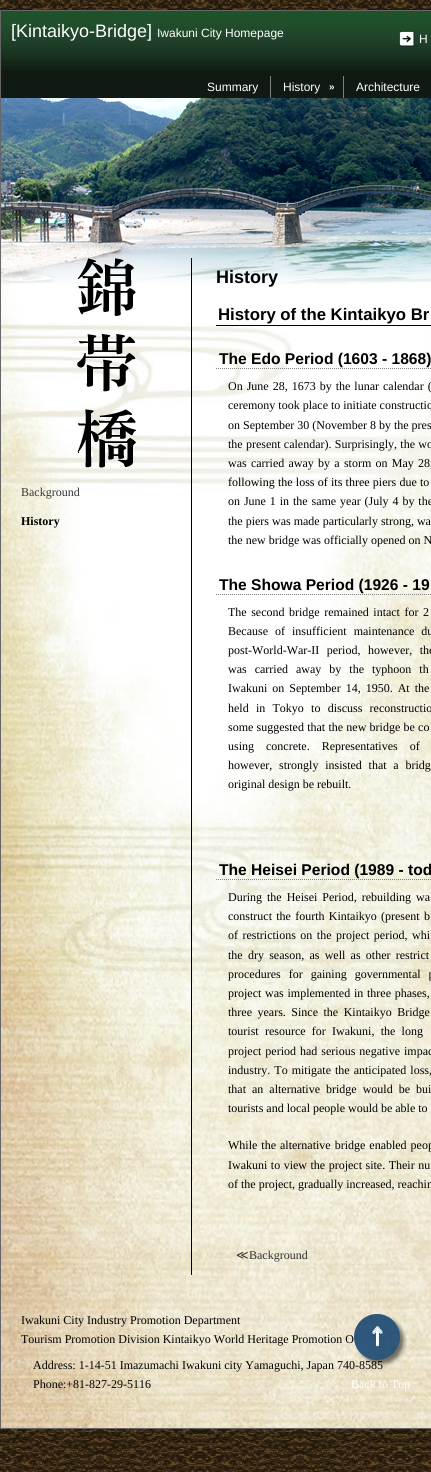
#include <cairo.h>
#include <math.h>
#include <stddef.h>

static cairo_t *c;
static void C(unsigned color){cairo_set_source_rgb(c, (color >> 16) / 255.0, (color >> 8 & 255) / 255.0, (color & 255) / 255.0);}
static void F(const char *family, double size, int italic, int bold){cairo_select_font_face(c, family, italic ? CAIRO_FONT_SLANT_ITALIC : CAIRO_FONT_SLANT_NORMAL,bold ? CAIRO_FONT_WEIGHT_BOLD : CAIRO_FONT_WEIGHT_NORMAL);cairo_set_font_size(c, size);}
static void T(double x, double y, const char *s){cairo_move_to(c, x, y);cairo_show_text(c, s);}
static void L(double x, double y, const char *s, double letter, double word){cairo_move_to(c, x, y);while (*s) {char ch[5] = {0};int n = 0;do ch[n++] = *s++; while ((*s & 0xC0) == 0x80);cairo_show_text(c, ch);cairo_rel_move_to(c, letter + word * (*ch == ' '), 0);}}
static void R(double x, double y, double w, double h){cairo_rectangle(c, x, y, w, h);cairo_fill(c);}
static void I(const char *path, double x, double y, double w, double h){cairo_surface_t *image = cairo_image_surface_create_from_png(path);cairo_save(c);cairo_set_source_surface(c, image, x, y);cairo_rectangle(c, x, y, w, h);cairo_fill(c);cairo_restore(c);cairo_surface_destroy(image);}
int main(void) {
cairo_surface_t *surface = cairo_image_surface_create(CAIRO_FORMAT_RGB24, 431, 1472);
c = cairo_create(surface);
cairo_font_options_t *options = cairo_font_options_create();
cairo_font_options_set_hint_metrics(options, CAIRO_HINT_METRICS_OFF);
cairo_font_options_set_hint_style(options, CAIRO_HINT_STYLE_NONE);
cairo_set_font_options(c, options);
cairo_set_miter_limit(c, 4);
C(0xffffff);
cairo_paint(c);
I("1.png",0,0,431,1472);
cairo_rectangle(c,.5,10.5,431,1418);
C(0x666666);
cairo_set_line_width(c,1);
cairo_stroke(c);
I("2.png",1,11,430,87);
F("Liberation Sans",18,0,0);
C(0xffffff);
T(11,37,"[Kintaikyo-Bridge]");
F("Liberation Sans",12,0,0);
T(157,37,"Iwakuni City Homepage");
I("3.png",399,31,16,16);
T(419,43,"H");
T(207,91,"Summary");
C(0x808080);
R(270,76,1,22);
C(0xffffff);
T(283,91,"History");
F("Liberation Sans",10,0,1);
T(329,90,"»");
C(0x808080);
R(343,76,1,22);
F("Liberation Sans",12,0,0);
C(0xffffff);
T(356,91,"Architecture");
I("4.png",1,250,430,1178);
I("5.png",1,98,430,187);
I("6.png",77,258,59,210);
F("Liberation Serif",12,0,0);
C(0x333333);
T(21,496,"Background");
F("Liberation Serif",12,0,1);
C(0x000000);
T(21,525,"History");
R(191,258,1,1017);
F("Liberation Sans",18,0,1);
T(216,283,"History");
R(216,325,215,1);
F("Liberation Sans",16.75,0,1);
T(218,320,"History of the Kintaikyo Br");
cairo_new_path(c);
cairo_move_to(c,216,368.5);
cairo_line_to(c,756,368.5);
C(0x808080);
cairo_set_dash(c,(double[]){1,1},2,0);
cairo_stroke(c);
F("Liberation Sans",15.6,0,1);
C(0x000000);
T(219,364,"The Edo Period (1603 - 1868)");
F("Liberation Serif",12,0,0);
L(228,390,"On June 28, 1673 by the lunar calendar (",0,1);
T(228,409,"ceremony took place to initiate constructio");
T(228,429,"on September 30 (November 8 by the pres");
L(228,448,"the present calendar). Surprisingly, the wo",0,.25);
L(228,467,"was carried away by a storm on May 28,",0,1.25);
L(228,486,"following the loss of its three piers due to",0,.25);
L(228,505,"on June 1 in the same year (July 4 by the",0,.9);
T(228,525,"the piers was made particularly strong, wa");
T(228,544,"the new bridge was officially opened on N");
cairo_new_path(c);
cairo_move_to(c,216,594.5);
cairo_line_to(c,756,594.5);
C(0x808080);
cairo_stroke(c);
F("Liberation Sans",15.6,0,1);
C(0x000000);
T(219,590,"The Showa Period (1926 - 19");
F("Liberation Serif",12,0,0);
L(228,616,"The second bridge remained intact for 2",0,1.5);
L(228,635,"Because of insufficient maintenance du",0,4);
L(228,654,"post-World-War-II period, however, the",0,4.5);
L(228,673,"was carried away by the typhoon th",0,5);
L(228,692,"Iwakuni on September 14, 1950. At the",0,2);
L(228,712,"held in Tokyo to discuss reconstructio",0,4.25);
L(228,731,"some suggested that the new bridge be co",0,.25);
L(228,750,"using concrete. Representatives of",0,9);
L(228,769,"however, strongly insisted that a bridg",0,3.75);
T(228,788,"original design be rebuilt.");
cairo_new_path(c);
cairo_move_to(c,216,879.5);
cairo_line_to(c,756,879.5);
C(0x808080);
cairo_stroke(c);
F("Liberation Sans",15.6,0,1);
C(0x000000);
T(219,875,"The Heisei Period (1989 - tod");
F("Liberation Serif",12,0,0);
L(228,901,"During the Heisei Period, rebuilding wa",0,2);
L(228,920,"construct the fourth Kintaikyo (present b",0,1.25);
L(228,939,"of restrictions on the project period, whi",0,1.5);
L(228,959,"the dry season, as well as other restrict",0,2.25);
L(228,978,"procedures for gaining governmental p",0,5);
L(228,997,"project was implemented in three phases,",0,.75);
L(228,1016,"three years. Since the Kintaikyo Bridge",0,2.5);
L(228,1035,"tourist resource for Iwakuni, the long",0,3.25);
L(228,1055,"project period had serious negative impac",0,1);
L(228,1074,"industry. To mitigate the anticipated loss,",0,1);
L(228,1093,"that an alternative bridge would be bui",0,3);
T(228,1112,"tourists and local people would be able to");
L(228,1149,"While the alternative bridge enabled peop",0,1);
L(228,1169,"Iwakuni to view the project site. Their nu",0,.5);
T(228,1188,"of the project, gradually increased, reachin");
F("DejaVu Sans",12,0,0);
C(0x333333);
T(236,1259,"≪");
F("Liberation Serif",12,0,0);
T(249,1259,"Background");
C(0x000000);
T(21,1324,"Iwakuni City Industry Promotion Department");
T(21,1343,"Tourism Promotion Division Kintaikyo World Heritage Promotion O");
T(33,1369,"Address: 1-14-51 Imazumachi Iwakuni city Yamaguchi, Japan 740-8585");
T(33,1388,"Phone:+81-827-29-5116");
I("7.png",354,1314,53,53);
C(0xffffff);
T(351,1388,"Back to Top");
cairo_surface_write_to_png(surface, "o.png");
cairo_font_options_destroy(options);
cairo_destroy(c);
cairo_surface_destroy(surface);
return 0;
}
